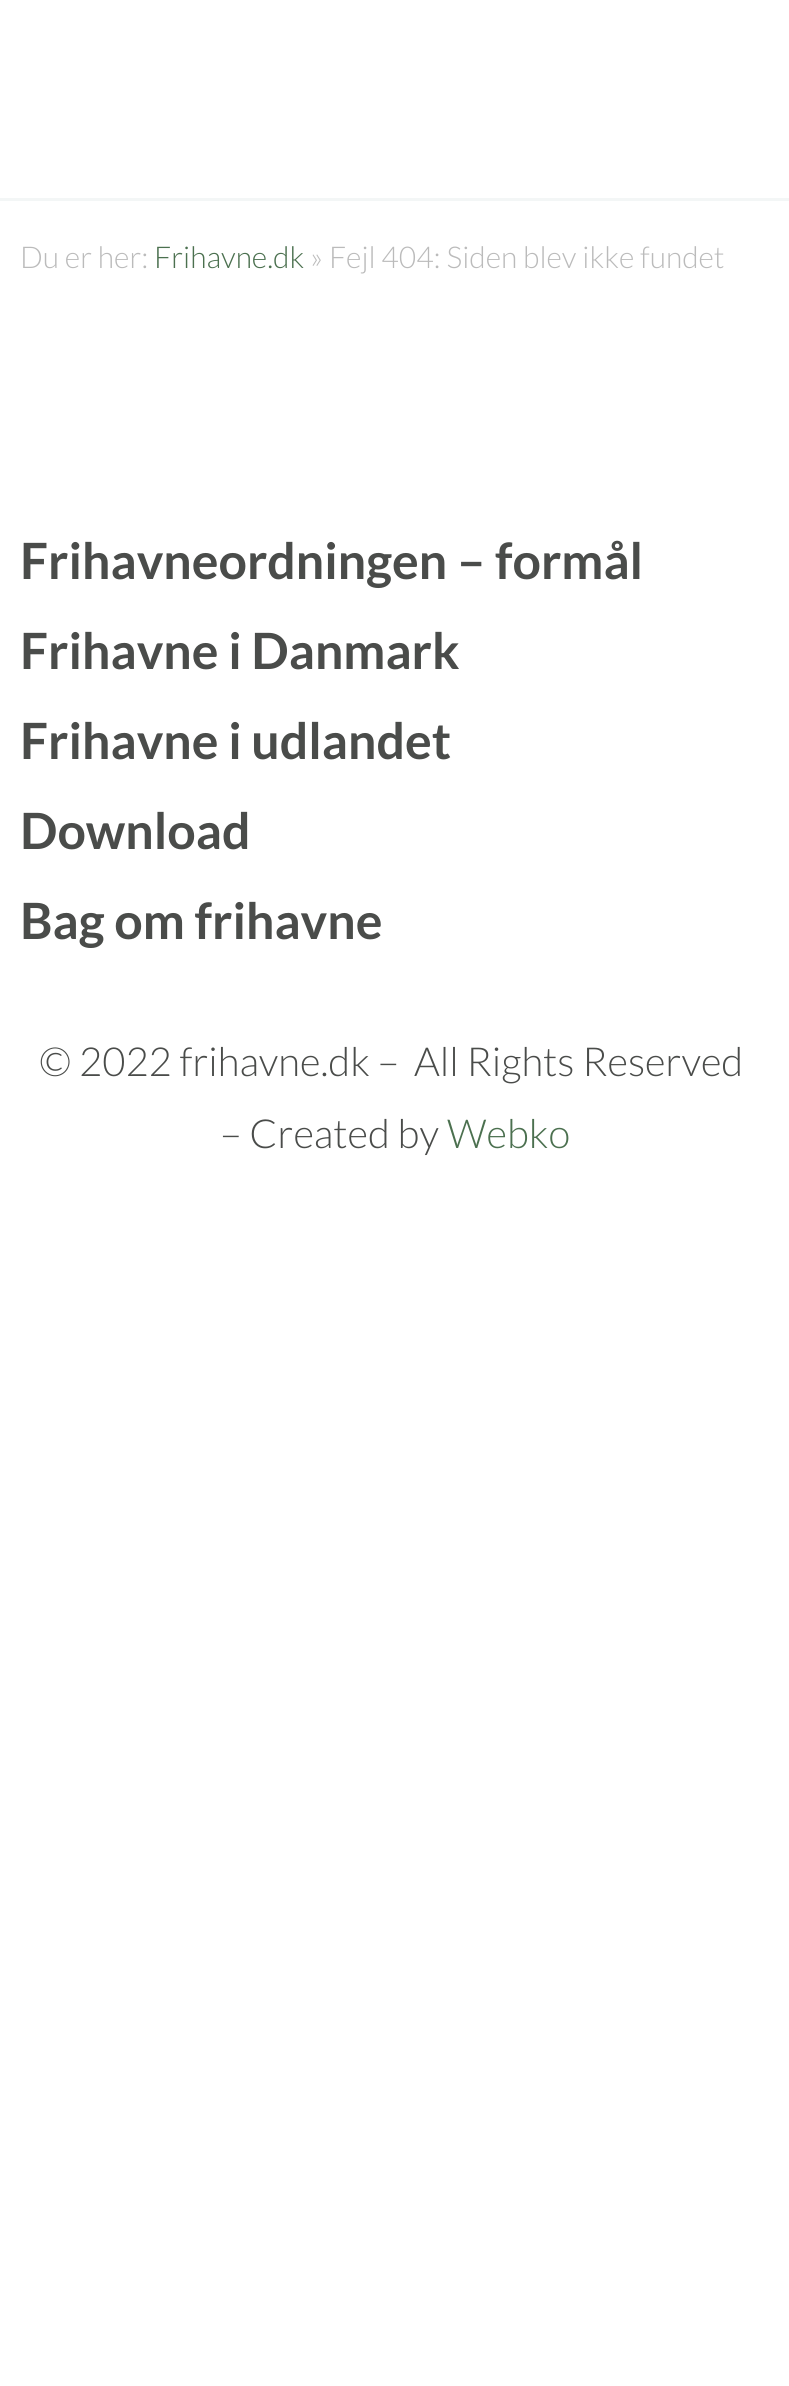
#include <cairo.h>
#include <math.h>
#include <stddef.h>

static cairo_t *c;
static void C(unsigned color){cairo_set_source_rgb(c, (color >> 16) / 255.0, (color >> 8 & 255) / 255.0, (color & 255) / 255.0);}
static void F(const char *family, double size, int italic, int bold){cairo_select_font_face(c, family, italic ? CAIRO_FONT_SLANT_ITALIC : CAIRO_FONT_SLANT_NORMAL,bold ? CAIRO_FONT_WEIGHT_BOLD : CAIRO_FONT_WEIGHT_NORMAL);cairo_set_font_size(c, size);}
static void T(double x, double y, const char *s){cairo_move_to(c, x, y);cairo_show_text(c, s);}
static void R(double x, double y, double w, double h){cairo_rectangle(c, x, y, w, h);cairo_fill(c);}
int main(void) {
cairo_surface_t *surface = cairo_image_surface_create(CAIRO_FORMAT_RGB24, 789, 2386);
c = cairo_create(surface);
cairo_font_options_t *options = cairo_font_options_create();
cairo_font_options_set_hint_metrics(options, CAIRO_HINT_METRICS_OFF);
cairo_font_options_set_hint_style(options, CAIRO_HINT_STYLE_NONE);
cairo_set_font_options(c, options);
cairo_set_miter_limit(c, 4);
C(0xffffff);
cairo_paint(c);
C(0xf3f6f6);
R(0,198,789,3);
F("Lato Light",30,0,0);
C(0xbbbbbb);
T(20,268,"Du er her:");
C(0x4b704f);
T(154,268,"Frihavne.dk");
C(0xbbbbbb);
T(310,268,"» Fejl 404: Siden blev ikke fundet");
F("Lato",50,0,1);
C(0x4a4c4a);
T(20,579,"Frihavneordningen – formål");
T(20,669,"Frihavne i Danmark");
T(20,759,"Frihavne i udlandet");
T(20,849,"Download");
T(20,939,"Bag om frihavne");
F("Lato Light",40,0,0);
T(39,1076,"© 2022 frihavne.dk –");
T(414,1076,"All Rights Reserved");
T(220,1148,"– Created by");
C(0x4b704f);
T(447,1148,"Webko");
cairo_surface_write_to_png(surface, "o.png");
cairo_font_options_destroy(options);
cairo_destroy(c);
cairo_surface_destroy(surface);
return 0;
}
